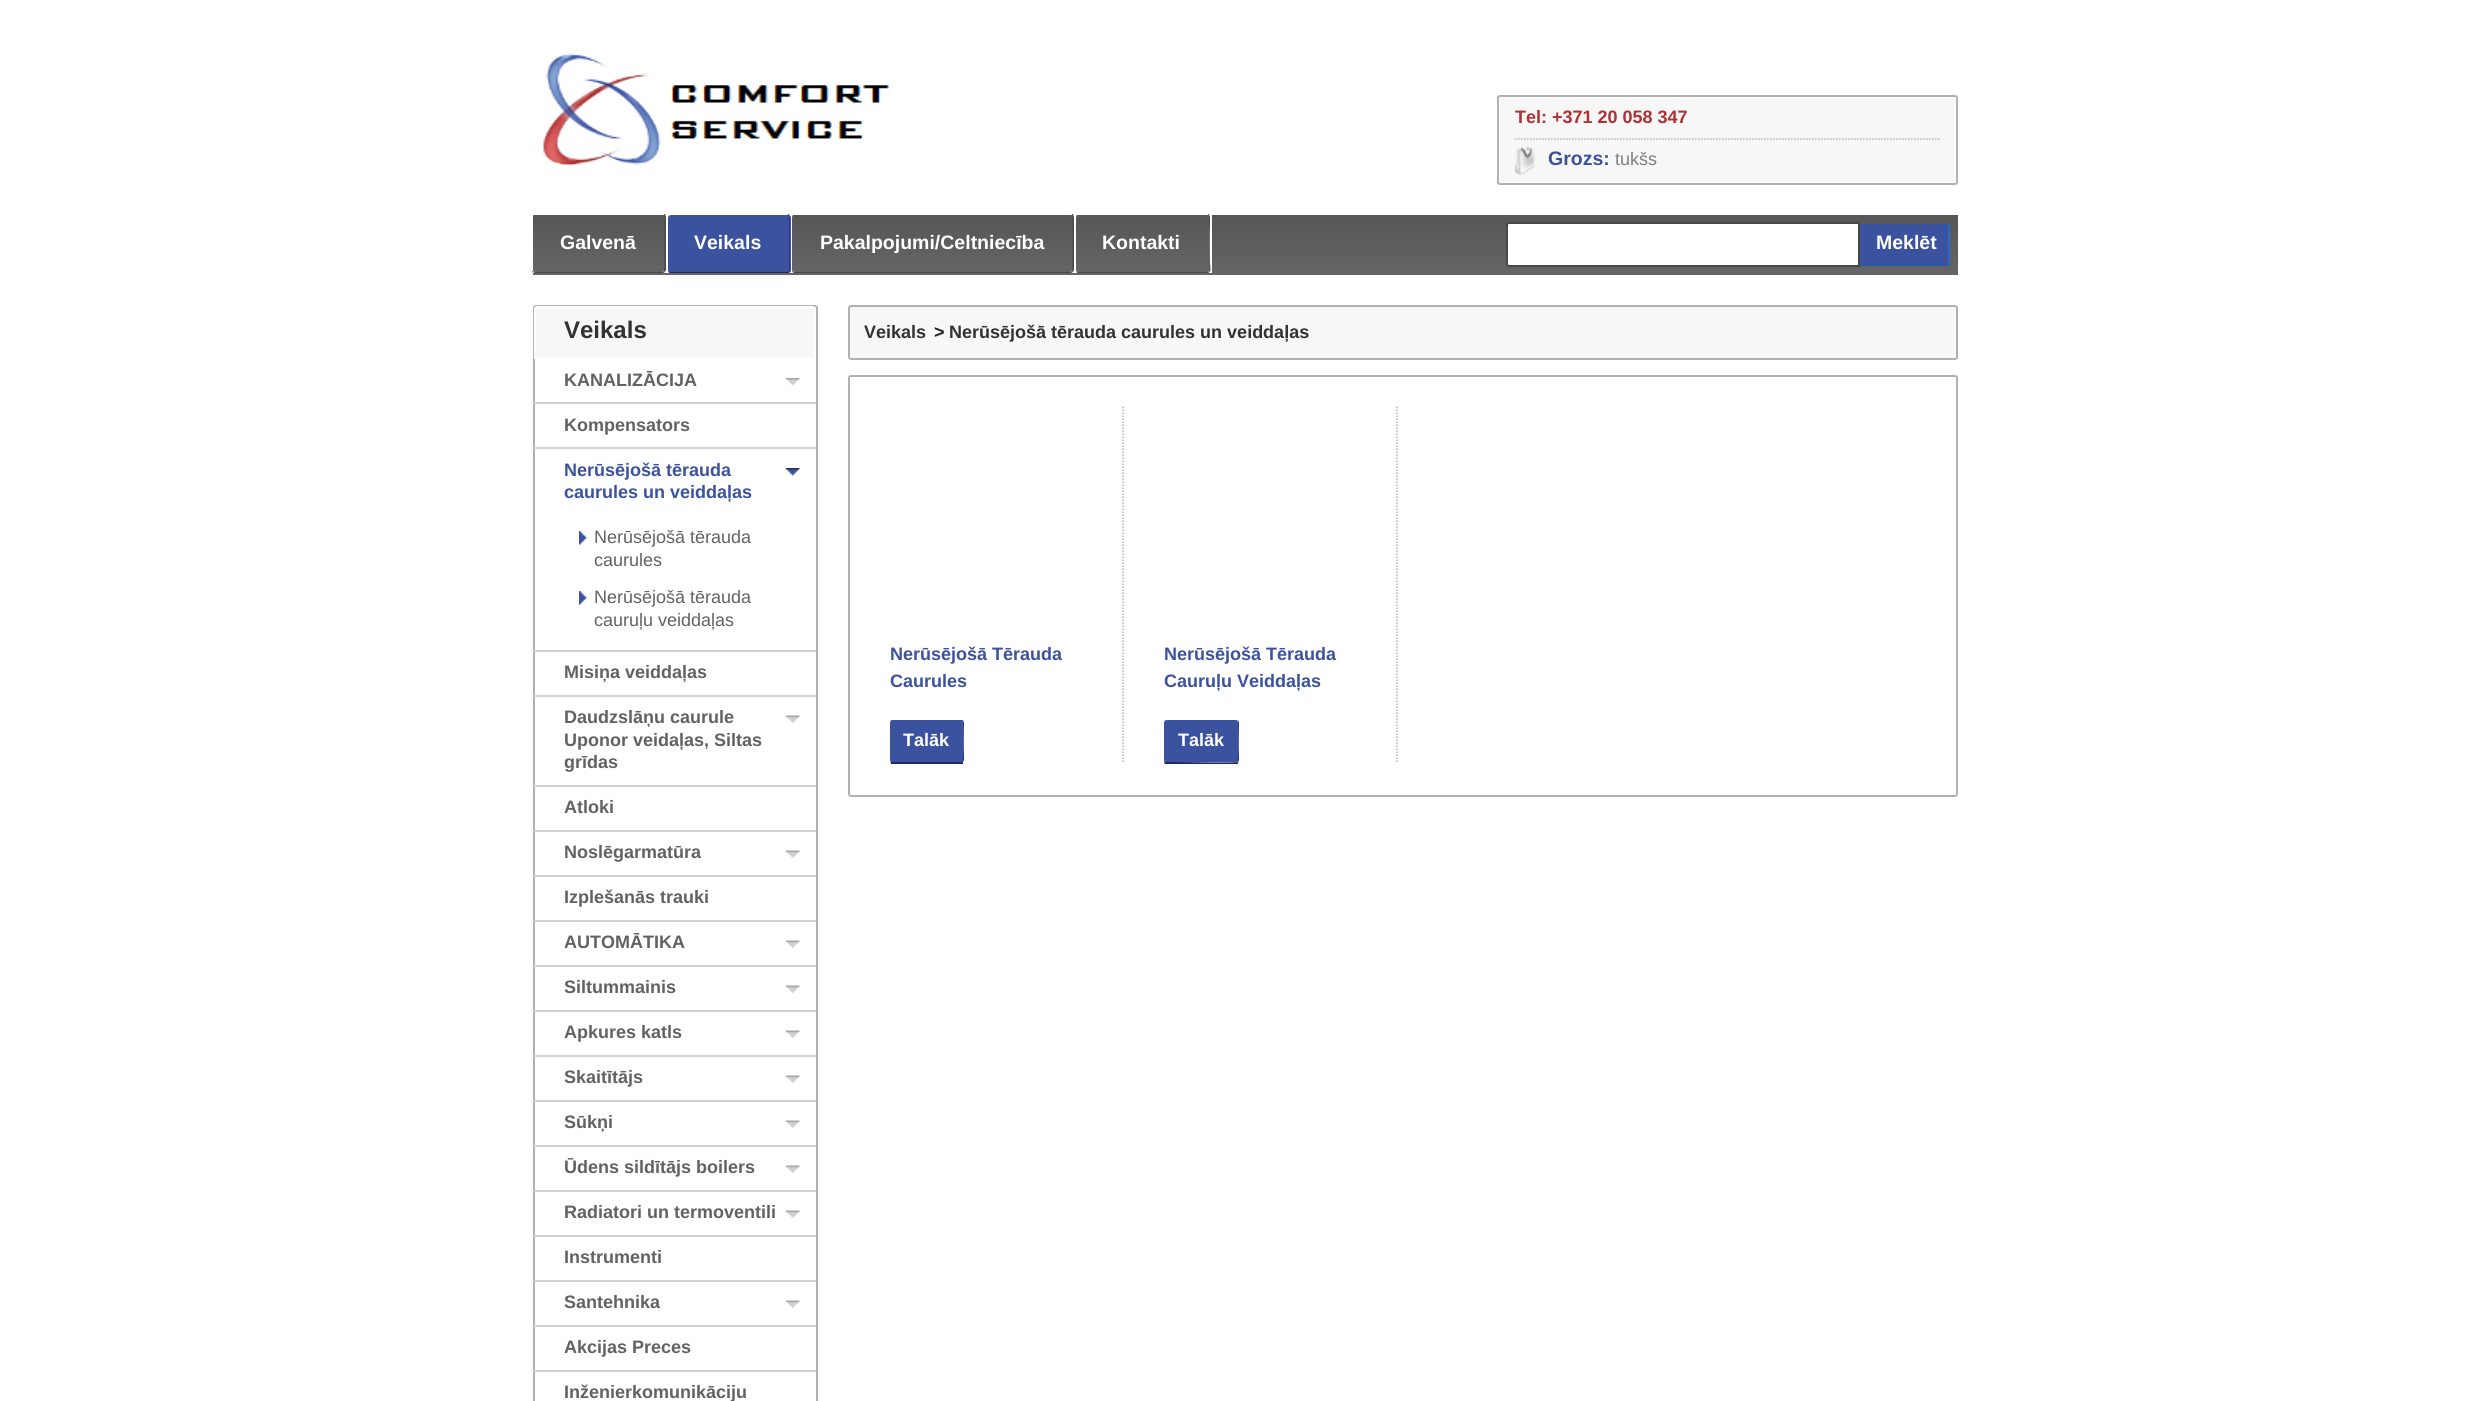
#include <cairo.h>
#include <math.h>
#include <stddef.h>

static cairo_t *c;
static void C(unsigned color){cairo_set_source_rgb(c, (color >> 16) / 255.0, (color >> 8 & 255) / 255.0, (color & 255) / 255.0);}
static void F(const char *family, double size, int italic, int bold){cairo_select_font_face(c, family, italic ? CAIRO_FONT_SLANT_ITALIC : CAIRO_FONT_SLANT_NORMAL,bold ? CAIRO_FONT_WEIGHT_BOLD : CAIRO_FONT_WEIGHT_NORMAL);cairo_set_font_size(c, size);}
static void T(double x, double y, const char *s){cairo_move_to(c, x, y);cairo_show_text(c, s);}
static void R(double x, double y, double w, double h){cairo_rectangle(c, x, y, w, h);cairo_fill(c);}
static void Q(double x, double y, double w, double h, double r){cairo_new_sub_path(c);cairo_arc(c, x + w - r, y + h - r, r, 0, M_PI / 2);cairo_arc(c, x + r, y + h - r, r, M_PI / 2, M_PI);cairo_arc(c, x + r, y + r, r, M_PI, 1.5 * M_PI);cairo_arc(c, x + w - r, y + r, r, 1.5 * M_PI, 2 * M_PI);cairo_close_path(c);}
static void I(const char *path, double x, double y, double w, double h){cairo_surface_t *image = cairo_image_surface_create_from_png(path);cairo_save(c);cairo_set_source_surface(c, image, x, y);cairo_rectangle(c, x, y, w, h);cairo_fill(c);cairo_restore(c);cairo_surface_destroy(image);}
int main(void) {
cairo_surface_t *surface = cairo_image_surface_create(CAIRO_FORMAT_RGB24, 2490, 1401);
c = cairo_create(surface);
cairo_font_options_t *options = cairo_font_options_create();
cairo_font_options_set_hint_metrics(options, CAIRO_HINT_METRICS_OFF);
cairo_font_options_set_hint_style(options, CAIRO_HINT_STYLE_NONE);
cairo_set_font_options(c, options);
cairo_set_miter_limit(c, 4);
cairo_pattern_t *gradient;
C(0xffffff);
cairo_paint(c);
I("1.png",542,53,347,113);
Q(1498,96,459,88,2);
C(0xb1b1b1);
cairo_stroke(c);
C(0xf7f7f7);
R(1500,98,455,84);
cairo_new_path(c);
cairo_move_to(c,1515,139);
cairo_line_to(c,1939.5,139);
C(0xb4b2b2);
cairo_set_line_width(c,1.5);
cairo_set_dash(c,(double[]){1.5,1.5},2,0);
cairo_stroke(c);
F("Liberation Sans",18,0,1);
C(0xad3133);
T(1515,123,"Tel: +371 20 058 347");
I("2.png",1515,147,20,29);
F("Liberation Sans",19.5,0,1);
C(0x3b529e);
T(1548,165,"Grozs:");
F("Liberation Sans",18,0,0);
C(0x807e7e);
T(1615,165,"tukšs");
gradient = cairo_pattern_create_linear(533,275,533,215);
cairo_pattern_add_color_stop_rgba(gradient,0,0.396,0.396,0.396,1);
cairo_pattern_add_color_stop_rgba(gradient,1,0.337,0.337,0.337,1);
cairo_set_source(c,gradient);
cairo_pattern_destroy(gradient);
R(533,215,1425,60);
C(0xffffff);
R(533,215,679,58);
cairo_save(c);
cairo_rectangle(c,533,215,679,58);
cairo_clip(c);
gradient = cairo_pattern_create_linear(533,272,533,215);
cairo_pattern_add_color_stop_rgba(gradient,0,0.396,0.396,0.396,1);
cairo_pattern_add_color_stop_rgba(gradient,1,0.337,0.337,0.337,1);
cairo_set_source(c,gradient);
cairo_pattern_destroy(gradient);
cairo_new_path(c);
cairo_move_to(c,536,214);
cairo_line_to(c,663,214);
cairo_curve_to(c,664,214,664,216,664,218);
cairo_line_to(c,664,270);
cairo_curve_to(c,664,271,664,272,663,272);
cairo_line_to(c,536,272);
cairo_curve_to(c,534,272,532,271,532,270);
cairo_line_to(c,532,218);
cairo_curve_to(c,532,216,534,214,536,214);
cairo_close_path(c);
cairo_fill(c);
cairo_restore(c);
C(0x4f4f4f);
cairo_new_path(c);
cairo_move_to(c,664,271);
cairo_line_to(c,664,214);
cairo_line_to(c,665,214);
cairo_line_to(c,666,217);
cairo_line_to(c,666,270);
cairo_line_to(c,665,272);
cairo_close_path(c);
cairo_fill(c);
C(0x4b4b4b);
cairo_new_path(c);
cairo_move_to(c,532,271);
cairo_curve_to(c,533,272,535,272,536,272);
cairo_line_to(c,663,272);
cairo_curve_to(c,664,272,664,272,664,271);
cairo_line_to(c,665,272);
cairo_line_to(c,663,273);
cairo_line_to(c,642,273);
cairo_line_to(c,535,273);
cairo_line_to(c,532,272);
cairo_close_path(c);
cairo_fill(c);
F("Liberation Sans",19.5,0,1);
C(0xffffff);
T(560,249,"Galvenā");
C(0x3b529e);
Q(668,215,123,58,3);
cairo_fill(c);
C(0x2a3a8f);
cairo_new_path(c);
cairo_move_to(c,789,271);
cairo_curve_to(c,789,270,790,218,788,214);
cairo_line_to(c,789,214);
cairo_line_to(c,790,217);
cairo_line_to(c,790,261);
cairo_curve_to(c,790,265,791,269,790,272);
cairo_close_path(c);
cairo_fill(c);
C(0x1e2965);
cairo_new_path(c);
cairo_move_to(c,670,273);
cairo_line_to(c,788,273);
cairo_line_to(c,790,272);
cairo_line_to(c,789,271);
cairo_line_to(c,788,272);
cairo_line_to(c,670,272);
cairo_line_to(c,668,271);
cairo_line_to(c,668,270);
cairo_curve_to(c,668,272,669,273,670,273);
cairo_close_path(c);
cairo_fill(c);
C(0xffffff);
T(694,249,"Veikals");
cairo_save(c);
cairo_rectangle(c,533,215,679,58);
cairo_clip(c);
gradient = cairo_pattern_create_linear(792,272,792,215);
cairo_pattern_add_color_stop_rgba(gradient,0,0.396,0.396,0.396,1);
cairo_pattern_add_color_stop_rgba(gradient,1,0.337,0.337,0.337,1);
cairo_set_source(c,gradient);
cairo_pattern_destroy(gradient);
cairo_new_path(c);
cairo_move_to(c,795,214);
cairo_line_to(c,1071,214);
cairo_curve_to(c,1072,214,1072,216,1072,218);
cairo_line_to(c,1072,270);
cairo_curve_to(c,1072,271,1072,272,1071,272);
cairo_line_to(c,795,272);
cairo_curve_to(c,793,272,792,271,792,270);
cairo_line_to(c,792,218);
cairo_curve_to(c,792,216,793,214,795,214);
cairo_close_path(c);
cairo_fill(c);
cairo_restore(c);
C(0x4f4f4f);
cairo_new_path(c);
cairo_move_to(c,1072,271);
cairo_line_to(c,1072,214);
cairo_line_to(c,1073,214);
cairo_line_to(c,1074,217);
cairo_line_to(c,1074,270);
cairo_line_to(c,1073,272);
cairo_close_path(c);
cairo_fill(c);
C(0x4b4b4b);
cairo_new_path(c);
cairo_move_to(c,795,273);
cairo_line_to(c,1071,273);
cairo_line_to(c,1073,272);
cairo_line_to(c,1072,271);
cairo_curve_to(c,1072,272,1072,272,1071,272);
cairo_line_to(c,795,272);
cairo_curve_to(c,793,272,792,271,792,270);
cairo_curve_to(c,792,272,793,273,795,273);
cairo_close_path(c);
cairo_fill(c);
C(0xffffff);
T(820,249,"Pakalpojumi/Celtniecība");
cairo_save(c);
cairo_rectangle(c,533,215,679,58);
cairo_clip(c);
gradient = cairo_pattern_create_linear(1076,272,1076,215);
cairo_pattern_add_color_stop_rgba(gradient,0,0.396,0.396,0.396,1);
cairo_pattern_add_color_stop_rgba(gradient,1,0.337,0.337,0.337,1);
cairo_set_source(c,gradient);
cairo_pattern_destroy(gradient);
cairo_new_path(c);
cairo_move_to(c,1078,214);
cairo_line_to(c,1208,214);
cairo_curve_to(c,1208,214,1209,216,1209,218);
cairo_line_to(c,1209,270);
cairo_curve_to(c,1209,271,1208,272,1208,272);
cairo_line_to(c,1078,272);
cairo_curve_to(c,1077,272,1076,271,1076,270);
cairo_line_to(c,1076,218);
cairo_curve_to(c,1076,216,1077,214,1078,214);
cairo_close_path(c);
cairo_fill(c);
cairo_restore(c);
C(0x4f4f4f);
cairo_new_path(c);
cairo_move_to(c,1209,271);
cairo_curve_to(c,1209,270,1210,218,1208,214);
cairo_line_to(c,1209,214);
cairo_line_to(c,1210,217);
cairo_line_to(c,1210,261);
cairo_curve_to(c,1210,265,1211,269,1210,272);
cairo_close_path(c);
cairo_fill(c);
C(0x4b4b4b);
cairo_new_path(c);
cairo_move_to(c,1078,273);
cairo_line_to(c,1208,273);
cairo_line_to(c,1210,272);
cairo_line_to(c,1209,271);
cairo_line_to(c,1208,272);
cairo_line_to(c,1078,272);
cairo_curve_to(c,1077,272,1076,271,1076,270);
cairo_curve_to(c,1076,272,1077,273,1078,273);
cairo_close_path(c);
cairo_fill(c);
C(0xffffff);
T(1102,249,"Kontakti");
cairo_new_path(c);
cairo_move_to(c,1509,223);
cairo_line_to(c,1859,223);
cairo_line_to(c,1859,266);
cairo_line_to(c,1509,266);
cairo_curve_to(c,1508,266,1507,265,1507,264);
cairo_line_to(c,1507,225);
cairo_curve_to(c,1507,224,1508,223,1509,223);
cairo_close_path(c);
cairo_fill_preserve(c);
C(0x494848);
cairo_set_line_width(c,2);
cairo_set_dash(c,NULL,0,0);
cairo_stroke(c);
C(0x3b529e);
cairo_new_path(c);
cairo_move_to(c,1860,224);
cairo_line_to(c,1947,224);
cairo_curve_to(c,1948.5,224,1950,225.5,1950,227);
cairo_line_to(c,1950,263);
cairo_curve_to(c,1950,264.5,1948.5,266,1947,266);
cairo_line_to(c,1860,266);
cairo_close_path(c);
cairo_fill(c);
C(0x2e68c1);
cairo_new_path(c);
cairo_move_to(c,1948,263);
cairo_line_to(c,1948,226);
cairo_curve_to(c,1948,225,1948,224,1947,224);
cairo_curve_to(c,1949,224,1950,225,1950,226);
cairo_line_to(c,1950,262);
cairo_line_to(c,1949,265);
cairo_close_path(c);
cairo_fill(c);
C(0x2758a2);
cairo_new_path(c);
cairo_move_to(c,1948,263);
cairo_line_to(c,1949,265);
cairo_line_to(c,1949,266);
cairo_line_to(c,1860,266);
cairo_line_to(c,1860,264);
cairo_line_to(c,1947,264);
cairo_close_path(c);
cairo_fill(c);
C(0xffffff);
T(1876,249,"Meklēt");
Q(534,306,283,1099,2);
C(0xb1b1b1);
cairo_stroke(c);
C(0xf7f7f7);
cairo_new_path(c);
cairo_move_to(c,537,307);
cairo_line_to(c,813,307);
cairo_curve_to(c,814,307,815,308,815,309);
cairo_line_to(c,815,358);
cairo_line_to(c,535,358);
cairo_line_to(c,535,309);
cairo_curve_to(c,535,308,536,307,537,307);
cairo_close_path(c);
cairo_fill_preserve(c);
C(0xfdfdfd);
cairo_stroke(c);
F("Liberation Sans",24,0,1);
C(0x323232);
T(564,338,"Veikals");
C(0xd2d2d2);
R(534,402,282,2);
F("Liberation Sans",18,0,1);
C(0x626262);
T(564,386,"KANALIZĀCIJA");
I("3.png",786,378,14,8);
C(0xd2d2d2);
R(534,447,282,2);
C(0x626262);
T(564,431,"Kompensators");
C(0xd2d2d2);
R(534,650,282,2);
C(0x3b529e);
T(564,476,"Nerūsējošā tērauda");
I("4.png",786,468,14,8);
T(564,498,"caurules un veiddaļas");
I("5.png",579,531,8,14);
F("Liberation Sans",18,0,0);
C(0x626262);
T(594,543,"Nerūsējošā tērauda");
T(594,566,"caurules");
I("5.png",579,591,8,14);
T(594,603,"Nerūsējošā tērauda");
T(594,626,"cauruļu veiddaļas");
C(0xd2d2d2);
R(534,695,282,2);
F("Liberation Sans",18,0,1);
C(0x626262);
T(564,678,"Misiņa veiddaļas");
C(0xd2d2d2);
R(534,785,282,2);
C(0x626262);
T(564,723,"Daudzslāņu caurule");
I("6.png",786,715,14,8);
T(564,746,"Uponor veidaļas, Siltas");
T(564,768,"grīdas");
C(0xd2d2d2);
R(534,830,282,2);
C(0x626262);
T(564,813,"Atloki");
C(0xd2d2d2);
R(534,875,282,2);
C(0x626262);
T(564,858,"Noslēgarmatūra");
I("6.png",786,850,14,8);
C(0xd2d2d2);
R(534,920,282,2);
C(0x626262);
T(564,903,"Izplešanās trauki");
C(0xd2d2d2);
R(534,965,282,2);
C(0x626262);
T(564,948,"AUTOMĀTIKA");
I("6.png",786,940,14,8);
C(0xd2d2d2);
R(534,1010,282,2);
C(0x626262);
T(564,993,"Siltummainis");
I("6.png",786,985,14,8);
C(0xd2d2d2);
R(534,1055,282,2);
C(0x626262);
T(564,1038,"Apkures katls");
I("6.png",786,1030,14,8);
C(0xd2d2d2);
R(534,1100,282,2);
C(0x626262);
T(564,1083,"Skaitītājs");
I("6.png",786,1075,14,8);
C(0xd2d2d2);
R(534,1145,282,2);
C(0x626262);
T(564,1128,"Sūkņi");
I("6.png",786,1120,14,8);
C(0xd2d2d2);
R(534,1190,282,2);
C(0x626262);
T(564,1173,"Ūdens sildītājs boilers");
I("6.png",786,1165,14,8);
C(0xd2d2d2);
R(534,1235,282,2);
C(0x626262);
T(564,1218,"Radiatori un termoventili");
I("6.png",786,1210,14,8);
C(0xd2d2d2);
R(534,1280,282,2);
C(0x626262);
T(564,1263,"Instrumenti");
C(0xd2d2d2);
R(534,1325,282,2);
C(0x626262);
T(564,1308,"Santehnika");
I("6.png",786,1300,14,8);
C(0xd2d2d2);
R(534,1370,282,2);
C(0x626262);
T(564,1353,"Akcijas Preces");
T(564,1398,"Inženierkomunikāciju");
C(0xf7f7f7);
Q(849,306,1108,53,2);
cairo_fill_preserve(c);
C(0xb1b1b1);
cairo_stroke(c);
C(0x323232);
T(864,338,"Veikals");
C(0x222222);
T(934,338,">");
C(0x323232);
T(949,338,"Nerūsējošā tērauda caurules un veiddaļas");
Q(849,376,1108,420,2);
C(0xb1b1b1);
cairo_stroke(c);
cairo_new_path(c);
cairo_move_to(c,1123,406.5);
cairo_line_to(c,1123,763.5);
C(0xb4b2b2);
cairo_set_line_width(c,1.5);
cairo_set_dash(c,(double[]){1.5,1.5},2,0);
cairo_stroke(c);
C(0x3b529e);
T(890,660,"Nerūsējošā Tērauda");
T(890,687,"Caurules");
cairo_new_path(c);
cairo_move_to(c,892,720);
cairo_line_to(c,962,720);
cairo_curve_to(c,962,720,963,721,963,723);
cairo_line_to(c,963,760);
cairo_curve_to(c,963,761,962,762,962,762);
cairo_line_to(c,892,762);
cairo_curve_to(c,891,762,890,761,890,760);
cairo_line_to(c,890,723);
cairo_curve_to(c,890,721,891,720,892,720);
cairo_close_path(c);
cairo_fill(c);
C(0x2a3a8f);
cairo_new_path(c);
cairo_move_to(c,964,723);
cairo_curve_to(c,964,721,963,720,962,720);
cairo_line_to(c,963,722);
cairo_curve_to(c,963,726,964,760,962,761);
cairo_line_to(c,963,762);
cairo_line_to(c,964,760);
cairo_close_path(c);
cairo_fill(c);
C(0x1e2965);
cairo_new_path(c);
cairo_move_to(c,963,764);
cairo_line_to(c,891,764);
cairo_line_to(c,890,760);
cairo_curve_to(c,890,761,891,762,892,762);
cairo_line_to(c,962,762);
cairo_line_to(c,962,761);
cairo_line_to(c,963,762);
cairo_close_path(c);
cairo_fill(c);
C(0xffffff);
T(903,746,"Talāk");
cairo_new_path(c);
cairo_move_to(c,1397,406.5);
cairo_line_to(c,1397,763.5);
C(0xb4b2b2);
cairo_stroke(c);
C(0x3b529e);
T(1164,660,"Nerūsējošā Tērauda");
T(1164,687,"Cauruļu Veiddaļas");
cairo_new_path(c);
cairo_move_to(c,1167,720);
cairo_line_to(c,1236,720);
cairo_curve_to(c,1237,720,1238,721,1238,723);
cairo_line_to(c,1238,760);
cairo_curve_to(c,1238,761,1237,762,1236,762);
cairo_line_to(c,1167,762);
cairo_curve_to(c,1165,762,1164,761,1164,760);
cairo_line_to(c,1164,723);
cairo_curve_to(c,1164,721,1165,720,1167,720);
cairo_close_path(c);
cairo_fill(c);
C(0x2a3a8f);
cairo_new_path(c);
cairo_move_to(c,1239,723);
cairo_curve_to(c,1239,721,1238,720,1236,720);
cairo_curve_to(c,1238,720,1238,722,1238,723);
cairo_curve_to(c,1238,728,1239,760,1237,762);
cairo_line_to(c,1238,763);
cairo_line_to(c,1239,760);
cairo_close_path(c);
cairo_fill(c);
C(0x1e2965);
cairo_new_path(c);
cairo_move_to(c,1165,764);
cairo_curve_to(c,1164,763,1164,761,1164,760);
cairo_line_to(c,1164,761);
cairo_line_to(c,1166,762);
cairo_line_to(c,1178,762);
cairo_curve_to(c,1185,762,1235,763,1237,762);
cairo_line_to(c,1238,763);
cairo_line_to(c,1238,764);
cairo_close_path(c);
cairo_fill(c);
C(0xffffff);
T(1178,746,"Talāk");
cairo_surface_write_to_png(surface, "o.png");
cairo_font_options_destroy(options);
cairo_destroy(c);
cairo_surface_destroy(surface);
return 0;
}
